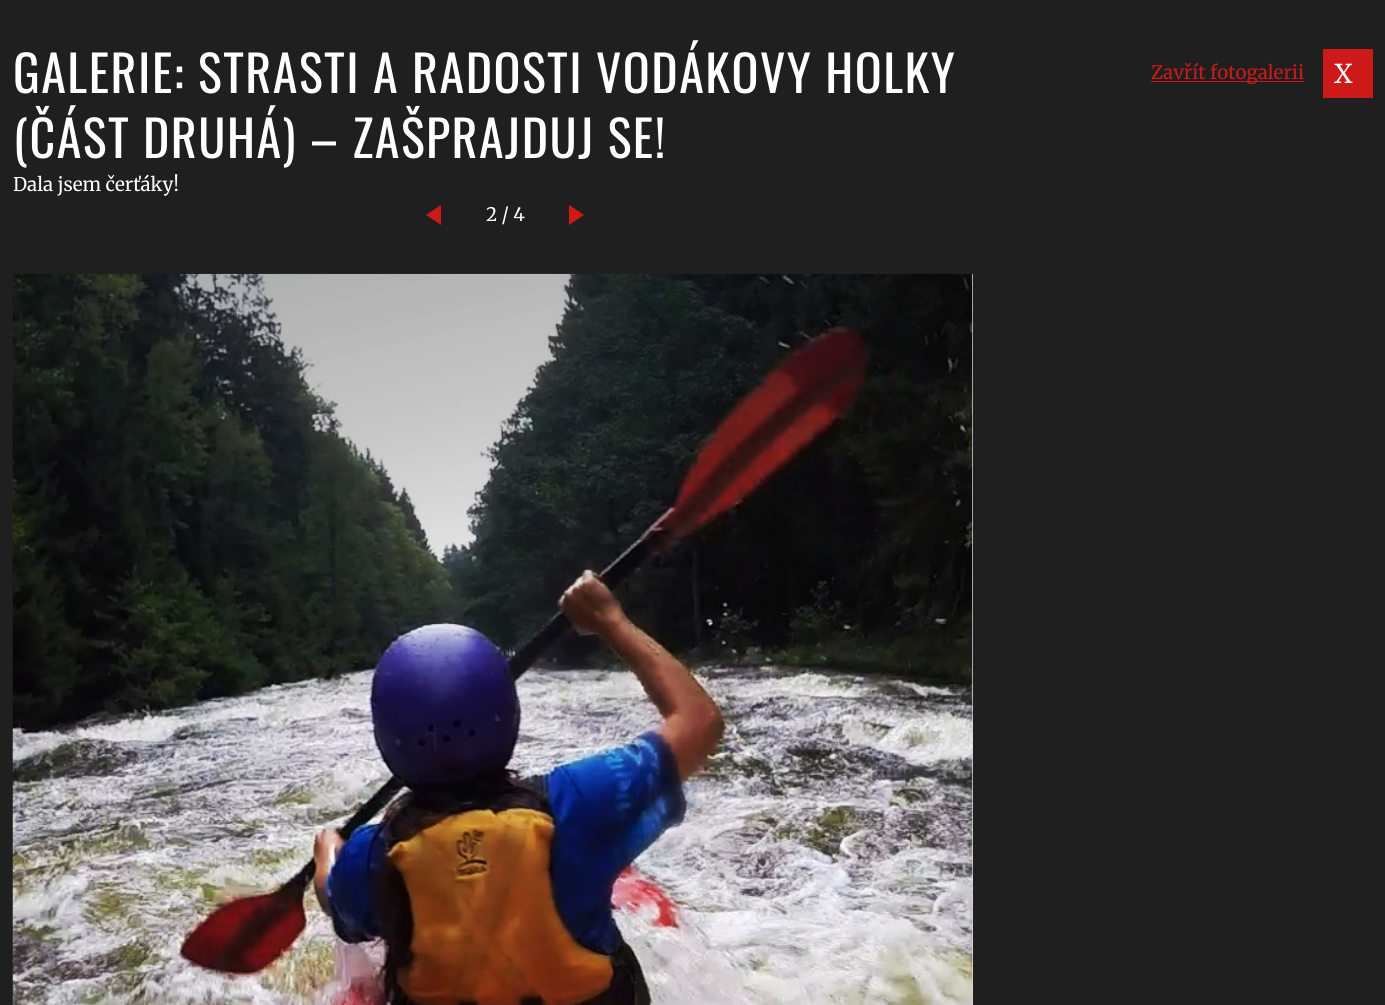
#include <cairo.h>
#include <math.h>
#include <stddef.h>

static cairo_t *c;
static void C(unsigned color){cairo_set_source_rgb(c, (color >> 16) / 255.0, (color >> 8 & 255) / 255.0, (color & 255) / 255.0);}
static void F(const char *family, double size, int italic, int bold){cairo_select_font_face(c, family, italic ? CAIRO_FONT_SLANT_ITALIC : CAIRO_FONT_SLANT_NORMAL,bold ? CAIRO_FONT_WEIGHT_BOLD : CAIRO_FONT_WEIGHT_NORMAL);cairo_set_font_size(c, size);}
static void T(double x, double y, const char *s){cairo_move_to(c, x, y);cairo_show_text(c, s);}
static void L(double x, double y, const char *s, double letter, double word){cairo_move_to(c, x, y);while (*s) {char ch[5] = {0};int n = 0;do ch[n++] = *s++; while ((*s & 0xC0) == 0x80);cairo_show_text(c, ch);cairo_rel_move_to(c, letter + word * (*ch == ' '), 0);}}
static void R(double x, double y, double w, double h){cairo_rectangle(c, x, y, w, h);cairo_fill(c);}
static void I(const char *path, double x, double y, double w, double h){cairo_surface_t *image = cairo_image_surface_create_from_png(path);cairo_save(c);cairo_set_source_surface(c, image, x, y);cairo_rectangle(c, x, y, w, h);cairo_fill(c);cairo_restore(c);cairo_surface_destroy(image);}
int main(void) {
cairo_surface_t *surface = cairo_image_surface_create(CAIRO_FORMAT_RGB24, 1385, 1005);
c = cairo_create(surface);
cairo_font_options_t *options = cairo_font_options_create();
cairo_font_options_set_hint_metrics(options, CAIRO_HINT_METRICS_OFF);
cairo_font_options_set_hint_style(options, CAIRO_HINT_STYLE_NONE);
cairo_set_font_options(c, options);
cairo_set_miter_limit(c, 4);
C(0x1f1f1f);
cairo_paint(c);
F("Oswald",50,0,0);
C(0xffffff);
L(13,93,"GALERIE: STRASTI A RADOSTI VODÁKOVY HOLKY",1.5,0);
L(13,158,"(ČÁST DRUHÁ) – ZAŠPRAJDUJ SE!",1.5,0);
F("Merriweather",18.75,0,0);
T(13,191,"Dala jsem čerťáky!");
C(0xce1919);
cairo_new_path(c);
cairo_move_to(c,441,205);
cairo_line_to(c,441,225);
cairo_line_to(c,426,215);
cairo_close_path(c);
cairo_fill(c);
C(0xffffff);
T(486,221,"2 / 4");
C(0xce1919);
cairo_new_path(c);
cairo_move_to(c,569,225);
cairo_line_to(c,569,205);
cairo_line_to(c,584,215);
cairo_close_path(c);
cairo_fill(c);
R(1151,81,153,1);
T(1151,79,"Zavřít fotogalerii");
R(1323,49,50,49);
F("Merriweather",26,0,0);
C(0xffffff);
L(1334,83,"X",8,0);
C(0xdadada);
R(972,274,1,731);
I("1.png",12,273,961,732);
cairo_surface_write_to_png(surface, "o.png");
cairo_font_options_destroy(options);
cairo_destroy(c);
cairo_surface_destroy(surface);
return 0;
}
